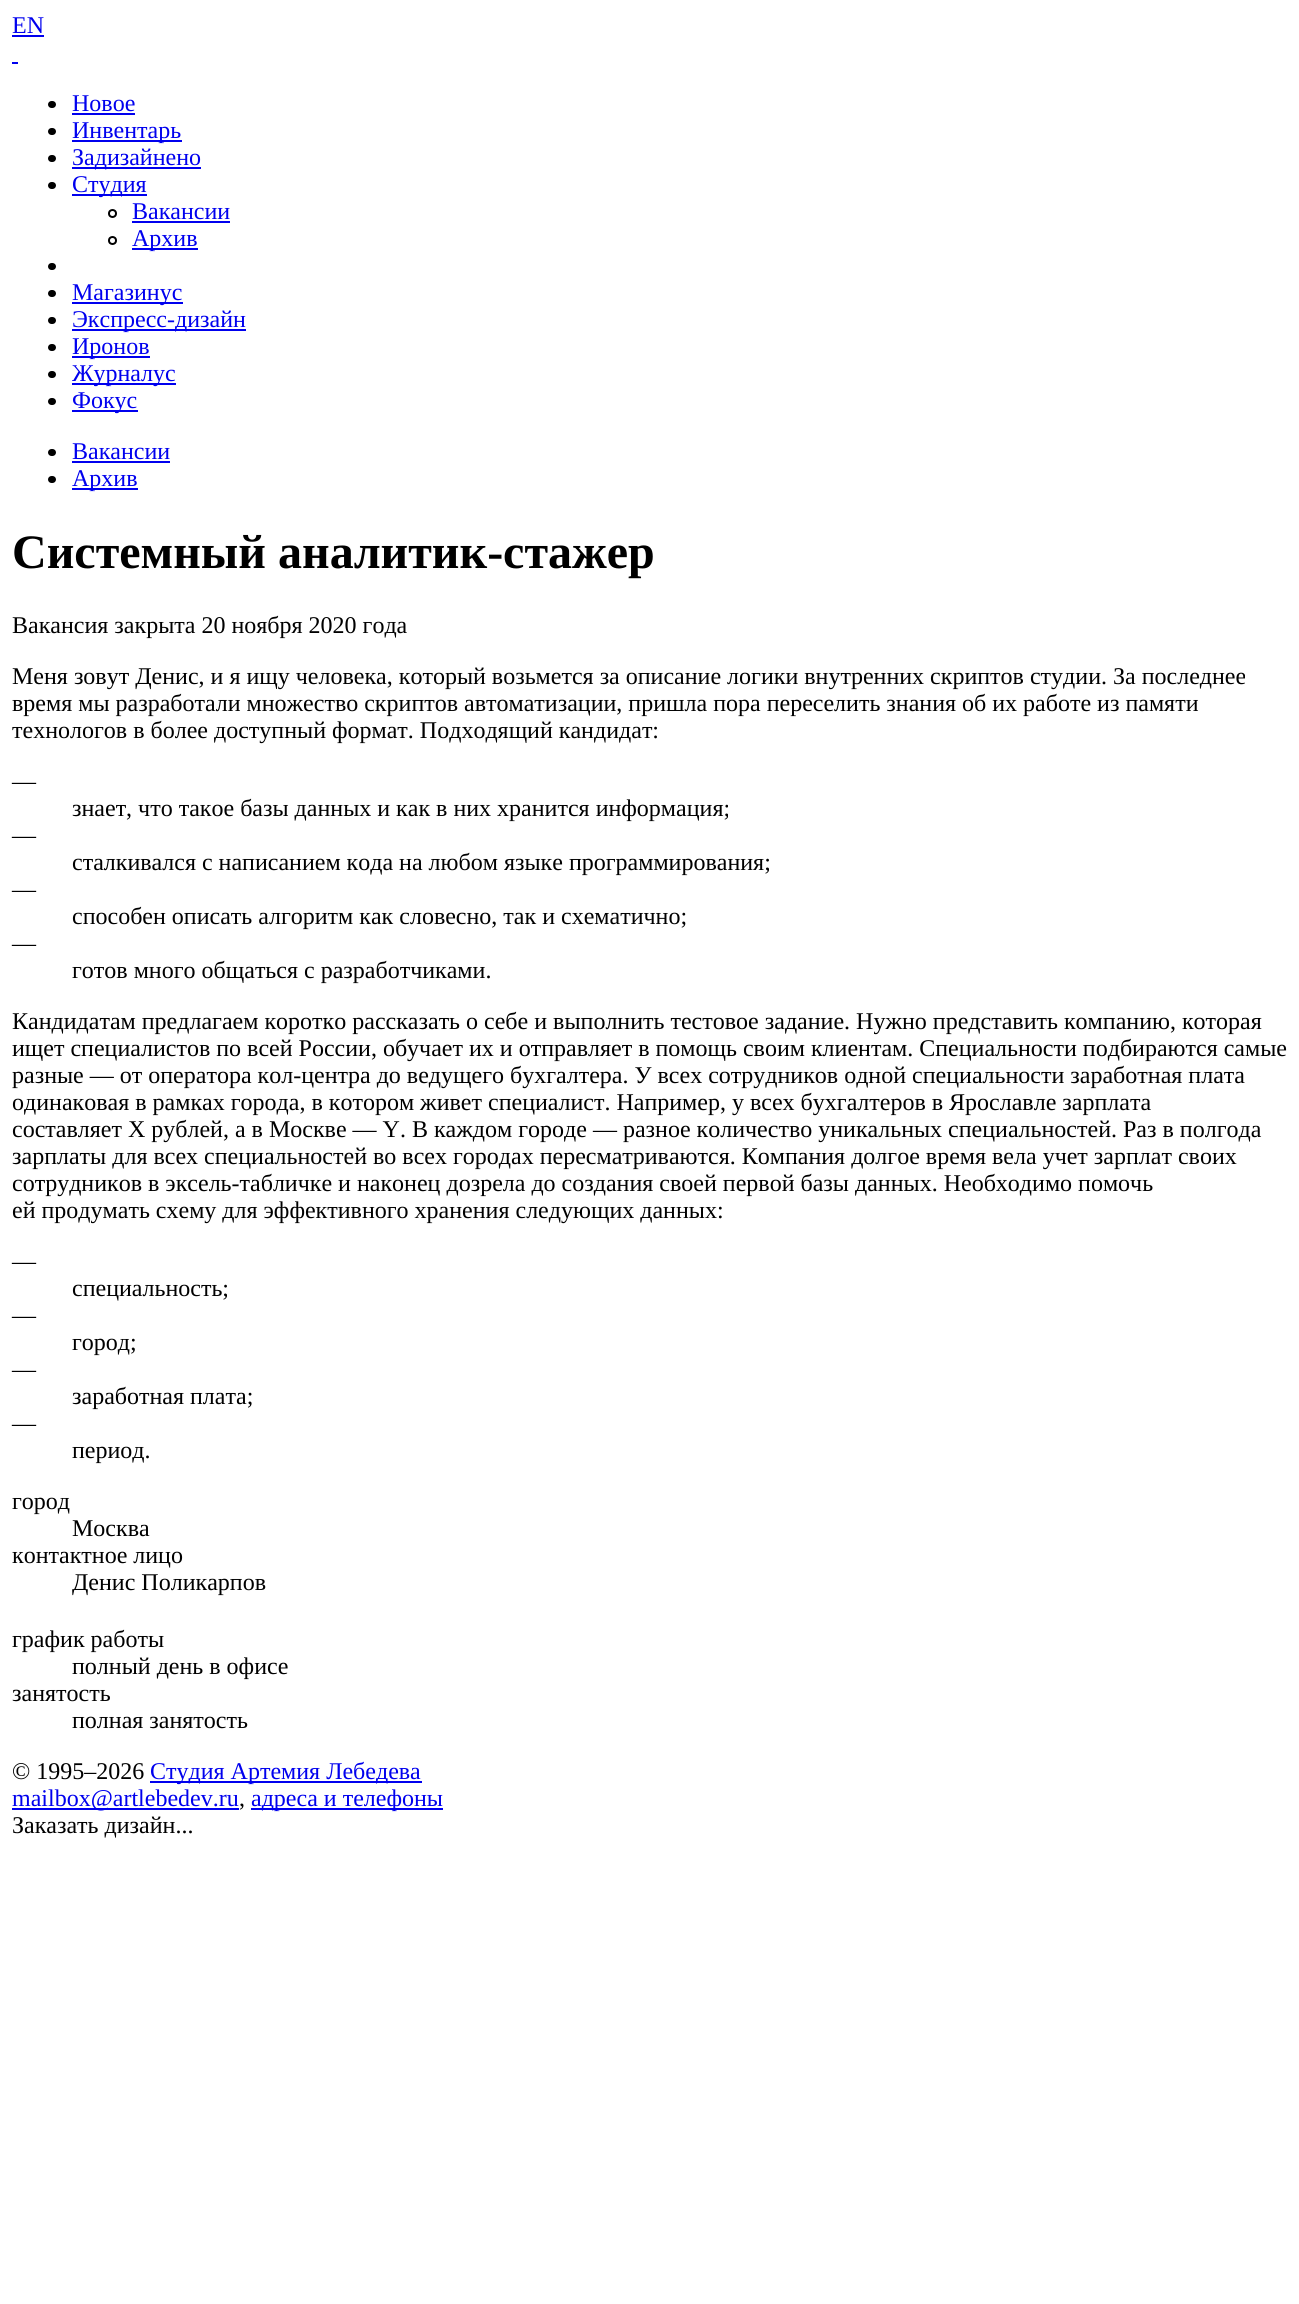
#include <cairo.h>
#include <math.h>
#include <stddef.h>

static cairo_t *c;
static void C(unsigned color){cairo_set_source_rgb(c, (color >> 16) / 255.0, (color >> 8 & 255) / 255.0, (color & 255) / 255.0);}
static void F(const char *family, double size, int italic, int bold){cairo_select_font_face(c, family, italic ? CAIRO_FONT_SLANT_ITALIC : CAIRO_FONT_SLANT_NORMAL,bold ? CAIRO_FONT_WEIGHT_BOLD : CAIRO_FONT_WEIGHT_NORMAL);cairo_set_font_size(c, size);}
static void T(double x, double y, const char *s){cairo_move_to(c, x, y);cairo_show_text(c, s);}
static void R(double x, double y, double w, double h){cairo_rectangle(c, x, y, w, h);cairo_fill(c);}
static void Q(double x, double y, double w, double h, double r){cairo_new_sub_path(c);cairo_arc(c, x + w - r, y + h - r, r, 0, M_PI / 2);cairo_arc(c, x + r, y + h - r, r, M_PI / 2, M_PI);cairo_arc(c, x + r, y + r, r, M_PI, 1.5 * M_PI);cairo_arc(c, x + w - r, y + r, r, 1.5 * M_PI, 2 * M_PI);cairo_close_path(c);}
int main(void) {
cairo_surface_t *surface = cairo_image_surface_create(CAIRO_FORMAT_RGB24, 1299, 2304);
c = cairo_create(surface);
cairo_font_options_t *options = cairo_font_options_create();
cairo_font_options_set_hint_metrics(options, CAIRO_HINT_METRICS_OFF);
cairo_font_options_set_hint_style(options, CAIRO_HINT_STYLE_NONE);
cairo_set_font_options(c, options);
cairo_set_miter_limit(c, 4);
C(0xffffff);
cairo_paint(c);
F("Liberation Serif",24,0,0);
C(0x0000ee);
T(12,33,"EN");
R(12,35,32,2);
R(12,62,6,2);
C(0x000000);
Q(48,101,8,7,3.5);
cairo_fill(c);
C(0x0000ee);
T(72,111,"Новое");
R(72,113,63,2);
C(0x000000);
Q(48,128,8,7,3.5);
cairo_fill(c);
C(0x0000ee);
R(72,140,110,2);
T(72,138,"Инвентарь");
C(0x000000);
Q(48,155,8,7,3.5);
cairo_fill(c);
C(0x0000ee);
R(72,167,129,2);
T(72,165,"Задизайнено");
C(0x000000);
Q(48,182,8,7,3.5);
cairo_fill(c);
C(0x0000ee);
R(72,194,75,2);
T(72,192,"Студия");
cairo_new_path(c);
cairo_arc(c,112.5,213.5,3.5,0,2 * M_PI);
C(0x000000);
cairo_stroke(c);
C(0x0000ee);
T(132,219,"Вакансии");
R(132,221,98,2);
cairo_new_path(c);
cairo_arc(c,112.5,240.5,3.5,0,2 * M_PI);
C(0x000000);
cairo_stroke(c);
C(0x0000ee);
R(132,248,66,2);
T(132,246,"Архив");
C(0x000000);
Q(48,263,8,7,3.5);
cairo_fill(c);
Q(48,290,8,7,3.5);
cairo_fill(c);
C(0x0000ee);
R(72,302,111,2);
T(72,300,"Магазинус");
C(0x000000);
Q(48,317,8,7,3.5);
cairo_fill(c);
C(0x0000ee);
R(72,329,174,2);
T(72,327,"Экспресс-дизайн");
C(0x000000);
Q(48,344,8,7,3.5);
cairo_fill(c);
C(0x0000ee);
R(72,356,78,2);
T(72,354,"Иронов");
C(0x000000);
Q(48,371,8,7,3.5);
cairo_fill(c);
C(0x0000ee);
R(72,383,104,2);
T(72,381,"Журналус");
C(0x000000);
Q(48,398,8,7,3.5);
cairo_fill(c);
C(0x0000ee);
R(72,410,66,2);
T(72,408,"Фокус");
C(0x000000);
Q(48,449,8,7,3.5);
cairo_fill(c);
C(0x0000ee);
T(72,459,"Вакансии");
R(72,461,98,2);
C(0x000000);
Q(48,476,8,7,3.5);
cairo_fill(c);
C(0x0000ee);
R(72,488,66,2);
T(72,486,"Архив");
F("Liberation Serif",48,0,1);
C(0x000000);
T(12,568,"Системный аналитик-стажер");
F("Liberation Serif",24,0,0);
T(12,633,"Вакансия закрыта 20 ноября 2020 года");
T(12,684,"Меня зовут Денис, и я ищу человека, который возьмется за описание логики внутренних скриптов студии. За последнее");
T(12,711,"время мы разработали множество скриптов автоматизации, пришла пора переселить знания об их работе из памяти");
T(12,738,"технологов в более доступный формат. Подходящий кандидат:");
T(12,789,"—");
T(72,816,"знает, что такое базы данных и как в них хранится информация;");
T(12,843,"—");
T(72,870,"сталкивался с написанием кода на любом языке программирования;");
T(12,897,"—");
T(72,924,"способен описать алгоритм как словесно, так и схематично;");
T(12,951,"—");
T(72,978,"готов много общаться с разработчиками.");
T(12,1029,"Кандидатам предлагаем коротко рассказать о себе и выполнить тестовое задание. Нужно представить компанию, которая");
T(12,1056,"ищет специалистов по всей России, обучает их и отправляет в помощь своим клиентам. Специальности подбираются самые");
T(12,1083,"разные — от оператора кол-центра до ведущего бухгалтера. У всех сотрудников одной специальности заработная плата");
T(12,1110,"одинаковая в рамках города, в котором живет специалист. Например, у всех бухгалтеров в Ярославле зарплата");
T(12,1137,"составляет Х рублей, а в Москве — Y. В каждом городе — разное количество уникальных специальностей. Раз в полгода");
T(12,1164,"зарплаты для всех специальностей во всех городах пересматриваются. Компания долгое время вела учет зарплат своих");
T(12,1191,"сотрудников в эксель-табличке и наконец дозрела до создания своей первой базы данных. Необходимо помочь");
T(12,1218,"ей продумать схему для эффективного хранения следующих данных:");
T(12,1269,"—");
T(72,1296,"специальность;");
T(12,1323,"—");
T(72,1350,"город;");
T(12,1377,"—");
T(72,1404,"заработная плата;");
T(12,1431,"—");
T(72,1458,"период.");
T(12,1509,"город");
T(72,1536,"Москва");
T(12,1563,"контактное лицо");
T(72,1590,"Денис Поликарпов");
T(12,1647,"график работы");
T(72,1674,"полный день в офисе");
T(12,1701,"занятость");
T(72,1728,"полная занятость");
T(12,1779,"© 1995–2026");
C(0x0000ee);
R(150,1781,272,2);
T(150,1779,"Студия Артемия Лебедева");
R(12,1808,227,2);
T(12,1806,"mailbox@artlebedev.ru");
C(0x000000);
T(239,1806,",");
C(0x0000ee);
R(251,1808,192,2);
T(251,1806,"адреса и телефоны");
C(0x000000);
T(12,1833,"Заказать дизайн...");
cairo_surface_write_to_png(surface, "o.png");
cairo_font_options_destroy(options);
cairo_destroy(c);
cairo_surface_destroy(surface);
return 0;
}
